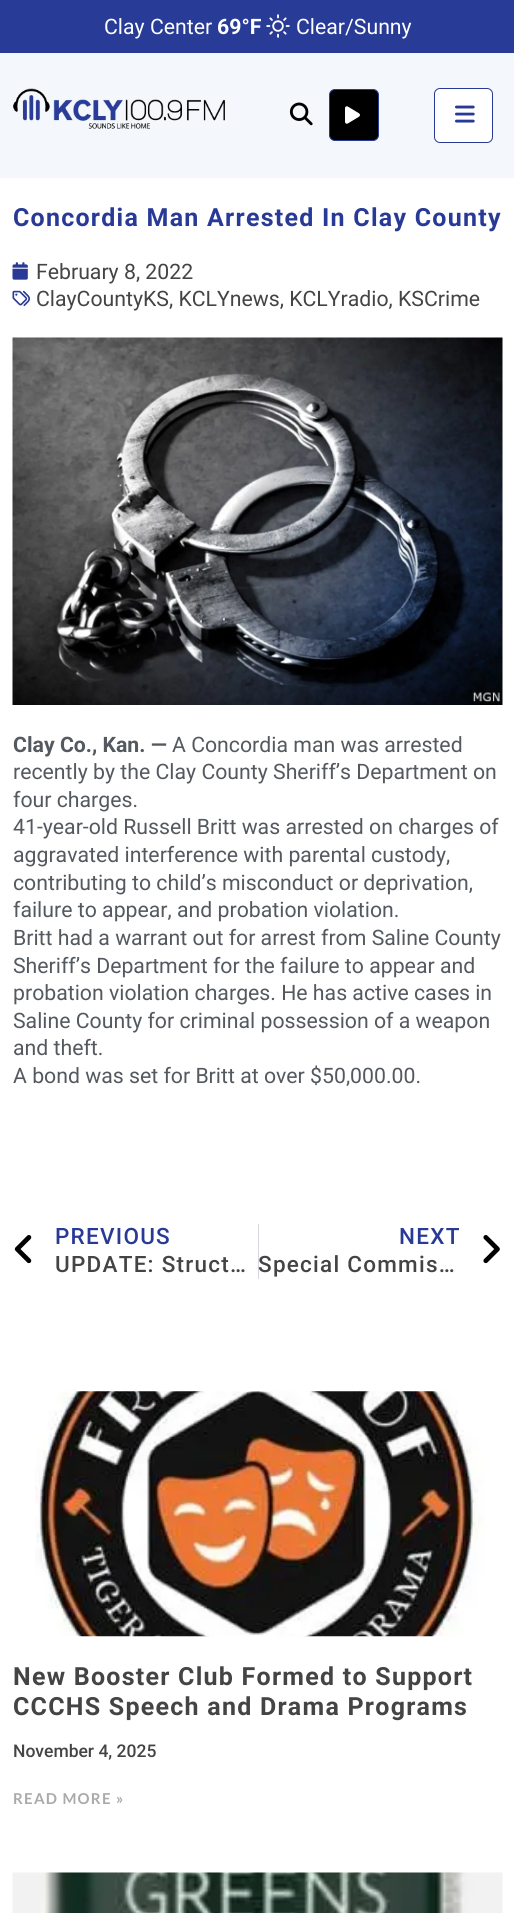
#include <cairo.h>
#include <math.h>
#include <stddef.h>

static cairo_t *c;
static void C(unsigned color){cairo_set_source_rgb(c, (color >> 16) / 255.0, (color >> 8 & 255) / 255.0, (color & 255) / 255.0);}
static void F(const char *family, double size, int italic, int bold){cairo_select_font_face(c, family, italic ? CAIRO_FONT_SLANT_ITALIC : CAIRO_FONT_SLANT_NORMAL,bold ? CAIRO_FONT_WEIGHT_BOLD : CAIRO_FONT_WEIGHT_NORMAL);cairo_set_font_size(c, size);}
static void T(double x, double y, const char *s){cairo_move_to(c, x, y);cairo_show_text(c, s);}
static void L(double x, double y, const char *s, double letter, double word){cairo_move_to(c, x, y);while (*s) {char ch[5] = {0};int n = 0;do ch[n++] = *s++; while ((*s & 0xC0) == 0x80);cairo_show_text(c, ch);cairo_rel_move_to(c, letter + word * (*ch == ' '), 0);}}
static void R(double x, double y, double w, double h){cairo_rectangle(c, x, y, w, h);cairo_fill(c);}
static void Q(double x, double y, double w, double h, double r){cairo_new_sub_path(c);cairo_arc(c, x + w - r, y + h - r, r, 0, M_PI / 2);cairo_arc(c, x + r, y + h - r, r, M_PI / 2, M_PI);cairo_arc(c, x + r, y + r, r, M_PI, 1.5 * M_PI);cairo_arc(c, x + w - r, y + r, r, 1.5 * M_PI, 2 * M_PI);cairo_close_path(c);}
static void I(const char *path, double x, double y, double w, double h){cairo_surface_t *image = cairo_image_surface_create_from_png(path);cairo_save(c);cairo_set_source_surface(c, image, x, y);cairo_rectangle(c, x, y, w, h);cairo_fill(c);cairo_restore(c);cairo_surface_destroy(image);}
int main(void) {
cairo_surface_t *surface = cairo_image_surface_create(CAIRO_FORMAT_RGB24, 514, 1913);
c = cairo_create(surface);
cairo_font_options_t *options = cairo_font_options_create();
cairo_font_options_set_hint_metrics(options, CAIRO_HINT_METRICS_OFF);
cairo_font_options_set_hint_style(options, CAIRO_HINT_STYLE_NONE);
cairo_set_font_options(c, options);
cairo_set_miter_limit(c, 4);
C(0xffffff);
cairo_paint(c);
C(0x283b97);
R(0,0,514,53);
F("Roboto",21.25,0,0);
C(0xffffff);
T(104,34,"Clay Center");
F("Roboto",21.25,0,1);
T(217,34,"69°F");
I("1.png",266,14,24,24);
F("Roboto",21.25,0,0);
T(296,34,"Clear/Sunny");
C(0xf4f7fb);
R(0,53,514,125);
I("2.png",13,88,212,41);
I("3.png",289,102,24,24);
C(0x000000);
Q(329.5,89.5,49,51,5.5);
cairo_fill_preserve(c);
C(0x283b97);
cairo_set_line_width(c,1);
cairo_stroke(c);
I("4.png",345,106,15,18);
C(0xffffff);
Q(434.5,88.5,58,54,5.5);
cairo_fill_preserve(c);
C(0x283a96);
cairo_stroke(c);
I("5.png",455,105,20,18);
F("Roboto",25,0,1);
L(13,226,"Concordia Man Arrested In Clay County",1.25,0);
I("6.png",12,262,16,18);
F("Roboto",21.25,0,0);
C(0x444444);
T(36,279,"February 8, 2022");
I("7.png",12,290,18,16);
T(36,306,"ClayCountyKS, KCLYnews, KCLYradio, KSCrime");
I("8.png",12,337,491,368);
F("Roboto",21.25,0,1);
C(0x54595f);
T(13,752,"Clay Co., Kan. —");
F("Roboto",21.25,0,0);
T(172,752,"A Concordia man was arrested");
T(13,779,"recently by the Clay County Sheriff’s Department on");
T(13,807,"four charges.");
T(13,834,"41-year-old Russell Britt was arrested on charges of");
T(13,862,"aggravated interference with parental custody,");
T(13,890,"contributing to child’s misconduct or deprivation,");
T(13,917,"failure to appear, and probation violation.");
T(13,945,"Britt had a warrant out for arrest from Saline County");
T(13,973,"Sheriff’s Department for the failure to appear and");
T(13,1000,"probation violation charges. He has active cases in");
T(13,1028,"Saline County for criminal possession of a weapon");
T(13,1055,"and theft.");
T(13,1083,"A bond was set for Britt at over $50,000.00.");
I("9.png",14,1235,18,29);
F("Roboto Medium",22.5,0,0);
C(0x283a96);
L(55,1244,"PREVIOUS",1.25,0);
C(0x444444);
L(55,1272,"UPDATE: Struct…",1.25,0);
C(0xd5d8dc);
R(258,1224,1,55);
C(0x283a96);
L(399,1244,"NEXT",1.25,0);
C(0x444444);
L(258,1272,"Special Commis…",1.25,0);
I("10.png",483,1235,17,29);
I("11.png",35,1391,450,246);
F("Roboto",25,0,1);
L(13,1685,"New Booster Club Formed to Support",1.25,0);
L(13,1715,"CCCHS Speech and Drama Programs",1.25,0);
F("Roboto Medium",17.5,0,0);
T(13,1757,"November 4, 2025");
F("Lato",15,0,1);
C(0xaaaaaa);
L(13,1804,"READ MORE »",1.25,0);
I("12.png",12,1872,491,41);
cairo_surface_write_to_png(surface, "o.png");
cairo_font_options_destroy(options);
cairo_destroy(c);
cairo_surface_destroy(surface);
return 0;
}
